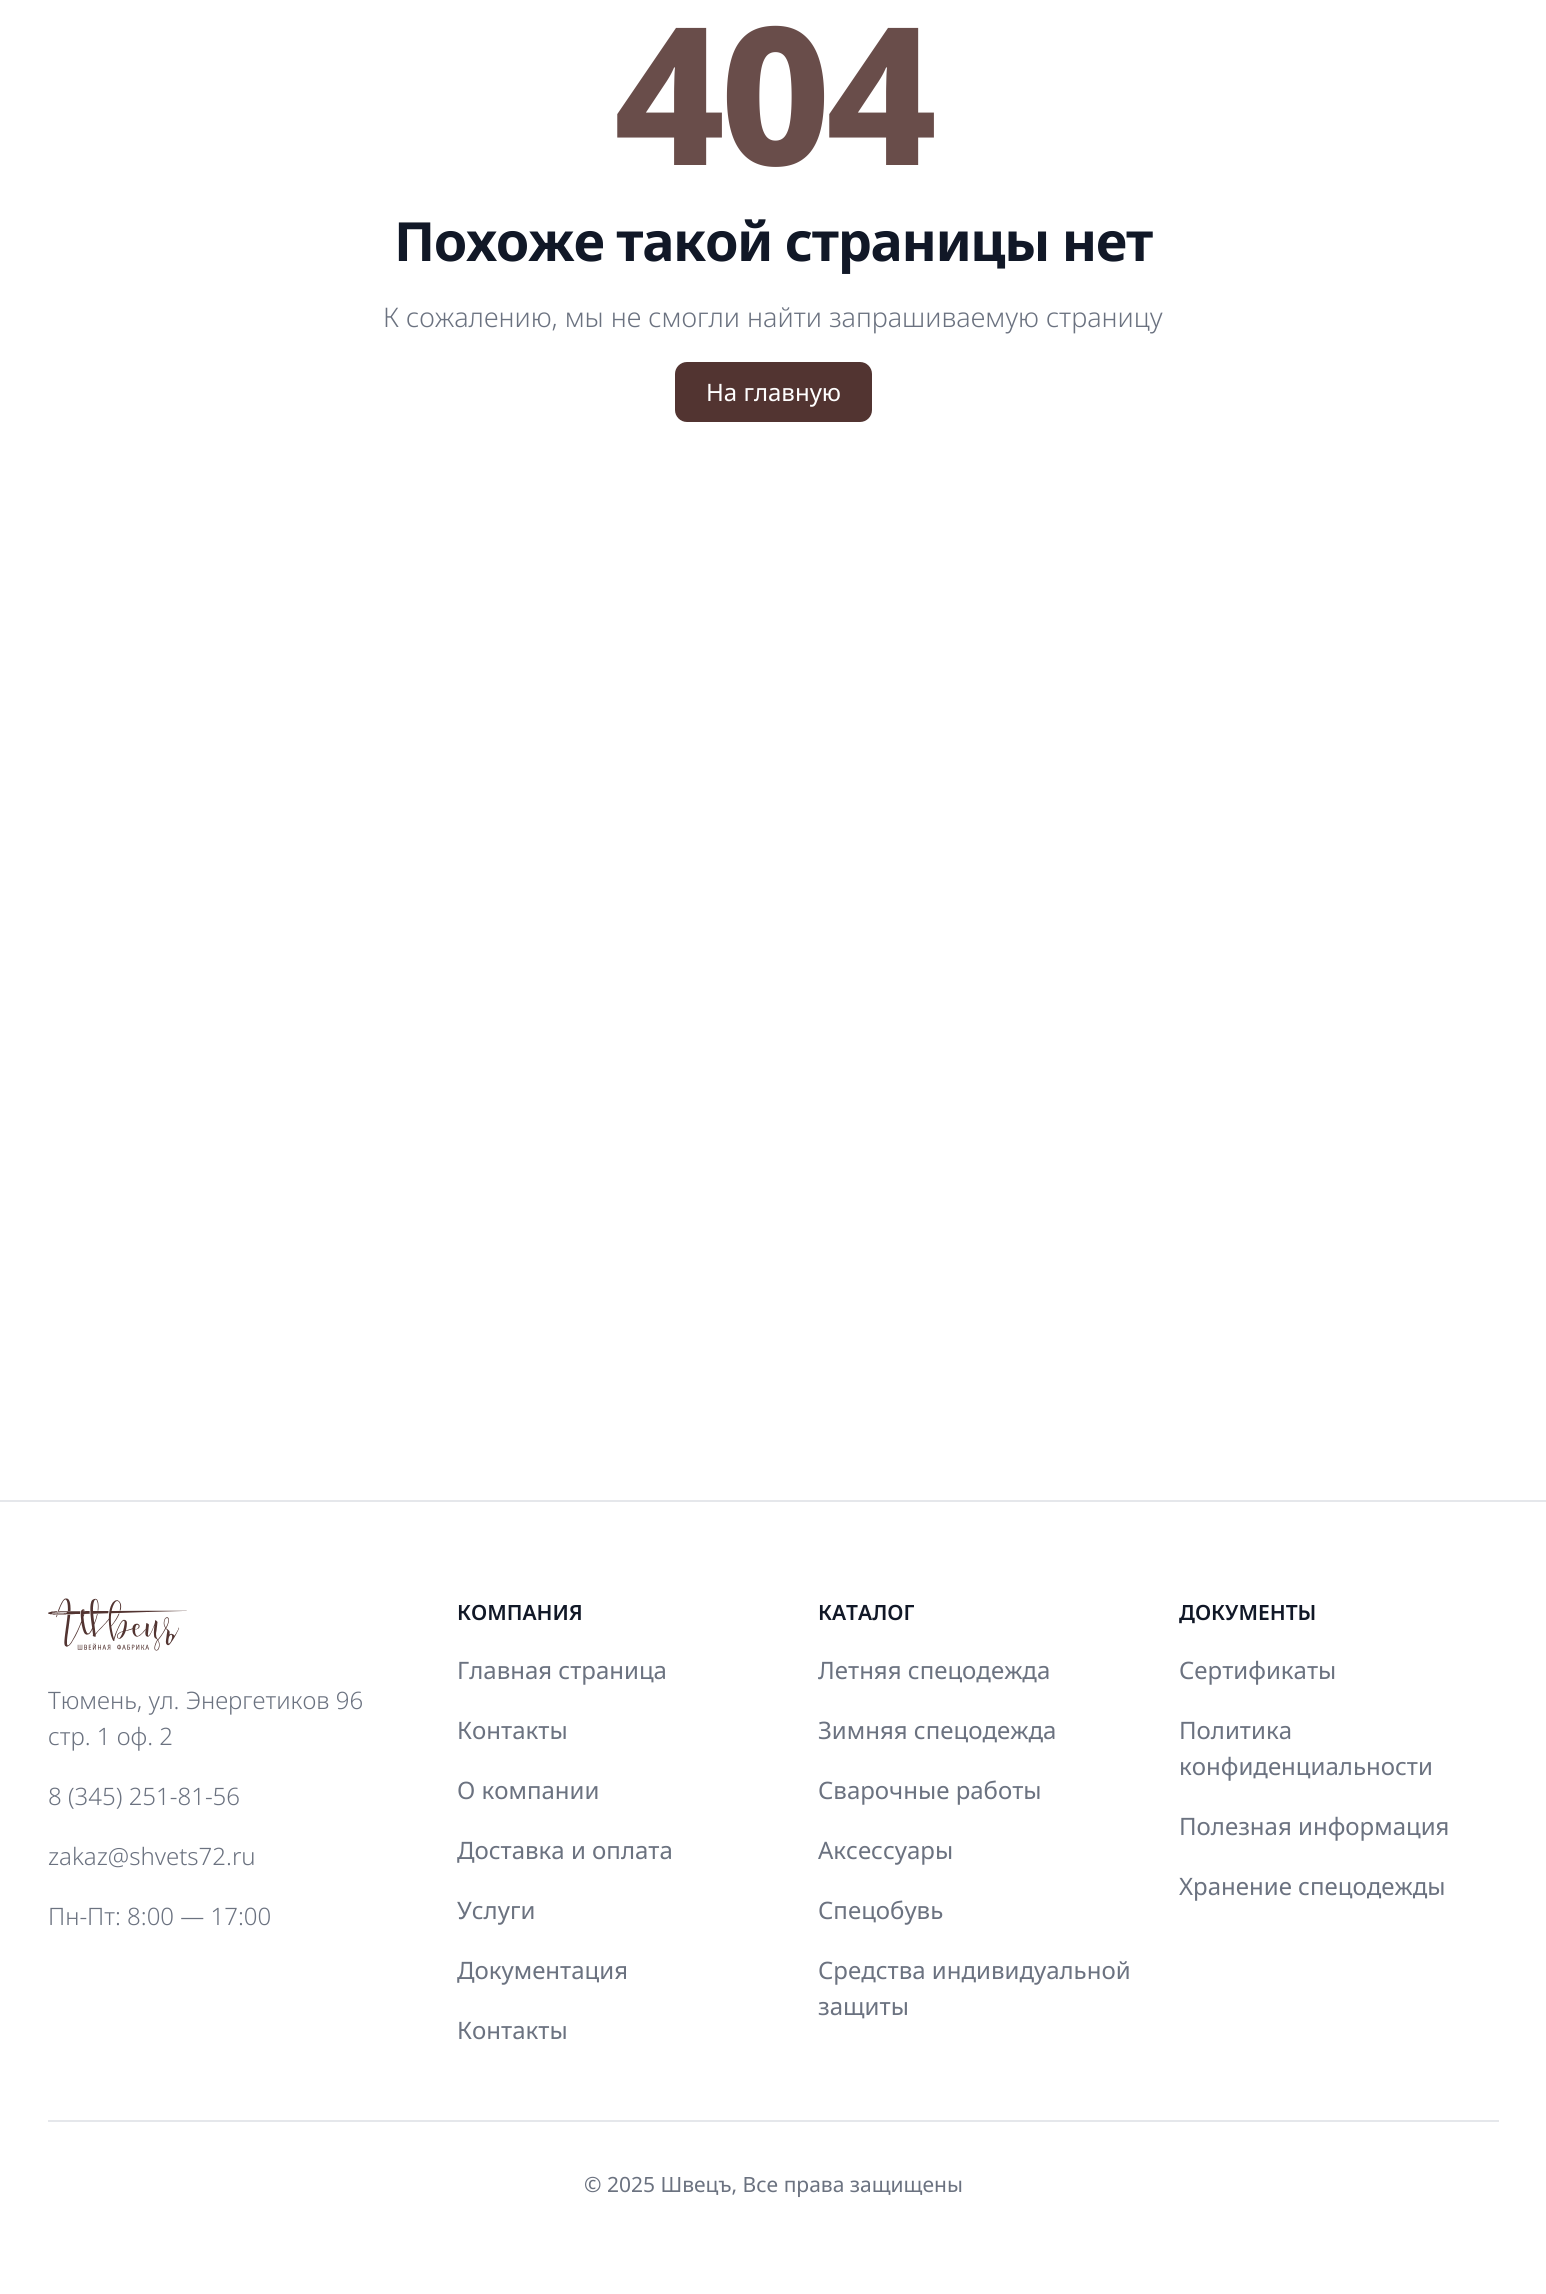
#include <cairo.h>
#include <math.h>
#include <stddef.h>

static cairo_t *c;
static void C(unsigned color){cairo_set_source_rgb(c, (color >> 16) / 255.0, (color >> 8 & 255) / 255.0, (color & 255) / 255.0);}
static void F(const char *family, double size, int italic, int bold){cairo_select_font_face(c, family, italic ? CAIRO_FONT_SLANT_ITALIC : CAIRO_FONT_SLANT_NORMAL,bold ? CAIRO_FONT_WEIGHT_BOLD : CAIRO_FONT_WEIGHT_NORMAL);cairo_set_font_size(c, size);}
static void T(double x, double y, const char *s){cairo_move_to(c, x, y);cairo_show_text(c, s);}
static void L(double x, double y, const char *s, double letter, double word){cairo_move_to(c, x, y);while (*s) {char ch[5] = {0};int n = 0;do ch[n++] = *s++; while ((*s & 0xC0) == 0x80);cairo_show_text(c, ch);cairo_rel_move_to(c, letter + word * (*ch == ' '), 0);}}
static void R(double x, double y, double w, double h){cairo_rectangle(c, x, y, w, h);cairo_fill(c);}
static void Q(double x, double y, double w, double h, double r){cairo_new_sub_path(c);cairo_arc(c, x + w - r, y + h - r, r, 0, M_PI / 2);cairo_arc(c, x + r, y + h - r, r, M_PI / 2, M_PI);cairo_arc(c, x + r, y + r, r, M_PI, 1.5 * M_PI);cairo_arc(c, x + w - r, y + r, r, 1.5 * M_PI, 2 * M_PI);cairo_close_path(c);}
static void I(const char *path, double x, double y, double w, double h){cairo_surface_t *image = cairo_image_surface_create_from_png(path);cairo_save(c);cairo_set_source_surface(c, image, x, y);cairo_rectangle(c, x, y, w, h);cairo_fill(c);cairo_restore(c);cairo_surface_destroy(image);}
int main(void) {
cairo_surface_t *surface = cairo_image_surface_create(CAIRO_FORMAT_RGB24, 1546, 2294);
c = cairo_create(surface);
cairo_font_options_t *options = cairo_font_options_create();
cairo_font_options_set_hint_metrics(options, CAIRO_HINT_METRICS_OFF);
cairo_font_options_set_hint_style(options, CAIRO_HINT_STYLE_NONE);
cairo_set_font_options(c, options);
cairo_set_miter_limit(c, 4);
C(0xffffff);
cairo_paint(c);
F("Noto Sans ExtraBold",192,0,0);
C(0x694d4a);
L(614,165,"404",-5,0);
F("Noto Sans",54,0,1);
C(0x111827);
L(394,261,"Похоже такой страницы нет",-1.35,0);
F("Noto Sans Light",27,0,0);
C(0x6b7280);
T(383,327,"К сожалению, мы не смогли найти запрашиваемую страницу");
C(0x523431);
Q(675,362,197,60,12);
cairo_fill(c);
F("Noto Sans",24,0,0);
C(0xffffff);
T(706,401,"На главную");
C(0xe5e7eb);
R(0,1500,1546,2);
I("1.png",48,1598,139,53);
F("Noto Sans Light",24,0,0);
C(0x6b7280);
T(48,1709,"Тюмень, ул. Энергетиков 96");
T(48,1745,"стр. 1 оф. 2");
T(48,1805,"8 (345) 251-81-56");
T(48,1865,"zakaz@shvets72.ru");
T(48,1925,"Пн-Пт: 8:00 — 17:00");
F("Noto Sans SemiBold",21,0,0);
C(0x111827);
T(457,1620,"КОМПАНИЯ");
F("Noto Sans",24,0,0);
C(0x6b7280);
T(457,1679,"Главная страница");
T(457,1739,"Контакты");
T(457,1799,"О компании");
T(457,1859,"Доставка и оплата");
T(457,1919,"Услуги");
T(457,1979,"Документация");
T(457,2039,"Контакты");
F("Noto Sans SemiBold",21,0,0);
C(0x111827);
T(818,1620,"КАТАЛОГ");
F("Noto Sans",24,0,0);
C(0x6b7280);
T(818,1679,"Летняя спецодежда");
T(818,1739,"Зимняя спецодежда");
T(818,1799,"Сварочные работы");
T(818,1859,"Аксессуары");
T(818,1919,"Спецобувь");
T(818,1979,"Средства индивидуальной");
T(818,2015,"защиты");
F("Noto Sans SemiBold",21,0,0);
C(0x111827);
T(1179,1620,"ДОКУМЕНТЫ");
F("Noto Sans",24,0,0);
C(0x6b7280);
T(1179,1679,"Сертификаты");
T(1179,1739,"Политика");
T(1179,1775,"конфиденциальности");
T(1179,1835,"Полезная информация");
T(1179,1895,"Хранение спецодежды");
C(0xe5e7eb);
R(48,2120,1451,2);
F("Noto Sans",21,0,0);
C(0x6b7280);
T(584,2192,"© 2025 Швецъ, Все права защищены");
cairo_surface_write_to_png(surface, "o.png");
cairo_font_options_destroy(options);
cairo_destroy(c);
cairo_surface_destroy(surface);
return 0;
}
